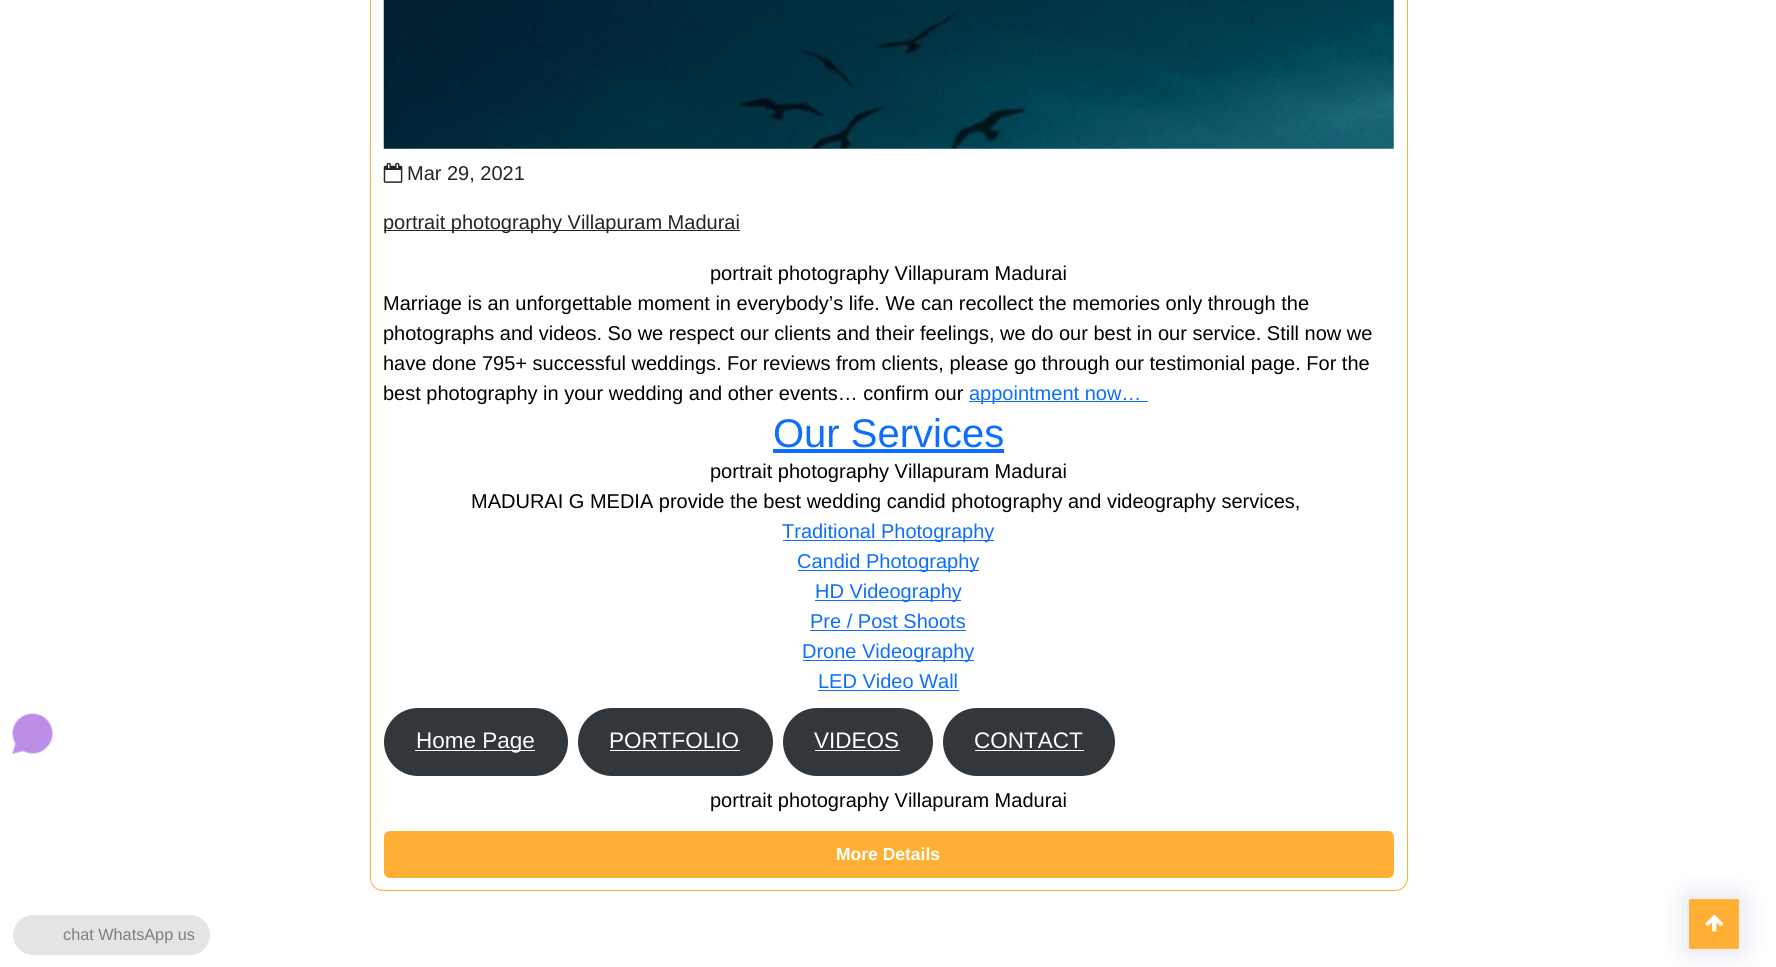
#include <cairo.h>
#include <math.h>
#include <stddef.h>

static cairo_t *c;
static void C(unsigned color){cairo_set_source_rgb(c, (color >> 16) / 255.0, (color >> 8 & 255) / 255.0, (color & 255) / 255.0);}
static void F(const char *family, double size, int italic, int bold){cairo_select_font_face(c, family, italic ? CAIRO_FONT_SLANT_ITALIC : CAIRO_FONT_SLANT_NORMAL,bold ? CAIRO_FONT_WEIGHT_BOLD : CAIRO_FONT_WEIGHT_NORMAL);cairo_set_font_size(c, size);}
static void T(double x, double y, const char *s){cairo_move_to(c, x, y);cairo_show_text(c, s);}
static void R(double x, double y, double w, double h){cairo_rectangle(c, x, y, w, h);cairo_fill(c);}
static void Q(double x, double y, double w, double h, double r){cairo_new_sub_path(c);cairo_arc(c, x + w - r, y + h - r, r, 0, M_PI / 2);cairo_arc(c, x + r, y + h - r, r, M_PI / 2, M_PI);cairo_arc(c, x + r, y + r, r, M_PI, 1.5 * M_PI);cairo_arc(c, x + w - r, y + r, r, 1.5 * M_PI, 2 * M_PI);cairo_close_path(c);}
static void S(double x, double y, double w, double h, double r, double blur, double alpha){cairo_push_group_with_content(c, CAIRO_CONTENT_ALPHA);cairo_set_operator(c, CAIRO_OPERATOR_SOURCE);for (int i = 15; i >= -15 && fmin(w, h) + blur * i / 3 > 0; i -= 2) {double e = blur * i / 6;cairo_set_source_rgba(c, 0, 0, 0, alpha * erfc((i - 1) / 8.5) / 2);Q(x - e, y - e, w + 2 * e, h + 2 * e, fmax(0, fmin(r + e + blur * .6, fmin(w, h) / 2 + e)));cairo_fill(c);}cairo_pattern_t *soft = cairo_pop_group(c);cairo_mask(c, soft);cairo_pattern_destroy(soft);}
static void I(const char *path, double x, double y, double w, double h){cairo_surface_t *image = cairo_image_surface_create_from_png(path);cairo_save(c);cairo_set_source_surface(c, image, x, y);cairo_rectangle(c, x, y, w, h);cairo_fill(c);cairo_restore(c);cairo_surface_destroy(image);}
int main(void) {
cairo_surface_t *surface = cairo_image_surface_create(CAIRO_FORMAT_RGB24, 1776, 967);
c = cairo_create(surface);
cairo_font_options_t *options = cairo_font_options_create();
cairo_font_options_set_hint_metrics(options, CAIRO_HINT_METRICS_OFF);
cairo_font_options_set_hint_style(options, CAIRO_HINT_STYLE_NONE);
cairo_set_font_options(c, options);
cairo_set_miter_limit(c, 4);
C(0xffffff);
cairo_paint(c);
Q(370.5,-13.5,1037,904,12.5);
C(0xffaf33);
cairo_set_line_width(c,1);
cairo_stroke(c);
I("1.png",383,0,1011,149);
I("2.png",383,162,20,21);
F("Liberation Sans",20,0,0);
C(0x212529);
T(407,180,"Mar 29, 2021");
R(384,230,356,1);
T(383,229,"portrait photography Villapuram Madurai");
C(0x000000);
T(710,280,"portrait photography Villapuram Madurai");
T(383,310,"Marriage is an unforgettable moment in everybody’s life. We can recollect the memories only through the");
T(383,340,"photographs and videos. So we respect our clients and their feelings, we do our best in our service. Still now we");
T(383,370,"have done 795+ successful weddings. For reviews from clients, please go through our testimonial page. For the");
T(383,400,"best photography in your wedding and other events… confirm our");
C(0x0d6efd);
R(969,401,179,1);
T(969,400,"appointment now…");
F("Liberation Sans",40,0,0);
T(773,447,"Our Services");
R(773,449,231,4);
F("Liberation Sans",20,0,0);
C(0x000000);
T(710,478,"portrait photography Villapuram Madurai");
T(471,508,"MADURAI G MEDIA provide the best wedding candid photography and videography services,");
C(0x0d6efd);
R(783,540,211,1);
T(782,538,"Traditional Photography");
R(798,570,181,1);
T(797,568,"Candid Photography");
R(815,600,146,1);
T(815,598,"HD Videography");
T(810,628,"Pre / Post Shoots");
R(810,630,156,1);
R(803,660,171,1);
T(802,658,"Drone Videography");
T(818,688,"LED Video Wall");
R(818,690,141,1);
C(0x32373c);
Q(384,708,184,68,34);
cairo_fill(c);
C(0xffffff);
R(415,750,120,1);
F("Liberation Sans",22.5,0,0);
T(416,748,"Home Page");
C(0x32373c);
Q(578,708,195,68,34);
cairo_fill(c);
C(0xffffff);
T(609,748,"PORTFOLIO");
R(610,750,130,1);
C(0x32373c);
Q(783,708,150,68,34);
cairo_fill(c);
C(0xffffff);
T(814,748,"VIDEOS");
R(815,750,85,1);
C(0x32373c);
Q(943,708,172,68,34);
cairo_fill(c);
C(0xffffff);
T(974,748,"CONTACT");
R(975,750,109,1);
F("Liberation Sans",20,0,0);
C(0x000000);
T(710,807,"portrait photography Villapuram Madurai");
C(0xffaf33);
Q(384,831,1010,47,6);
cairo_fill(c);
F("Liberation Sans",17.5,0,1);
C(0xffffff);
T(836,860,"More Details");
C(0x091d76);
S(1689,899,50,50,0,15.5,.15);
C(0xffaf33);
cairo_rectangle(c,1689.5,899.5,49,49);
cairo_fill_preserve(c);
C(0xffb747);
cairo_stroke(c);
I("3.png",1705,915,18,17);
C(0xe4e4e4);
Q(13,915,197,40,20);
cairo_fill(c);
I("4.png",12,713,41,41);
F("Liberation Sans",16.25,0,0);
C(0x7f7d7d);
T(63,940,"chat WhatsApp us");
cairo_surface_write_to_png(surface, "o.png");
cairo_font_options_destroy(options);
cairo_destroy(c);
cairo_surface_destroy(surface);
return 0;
}
